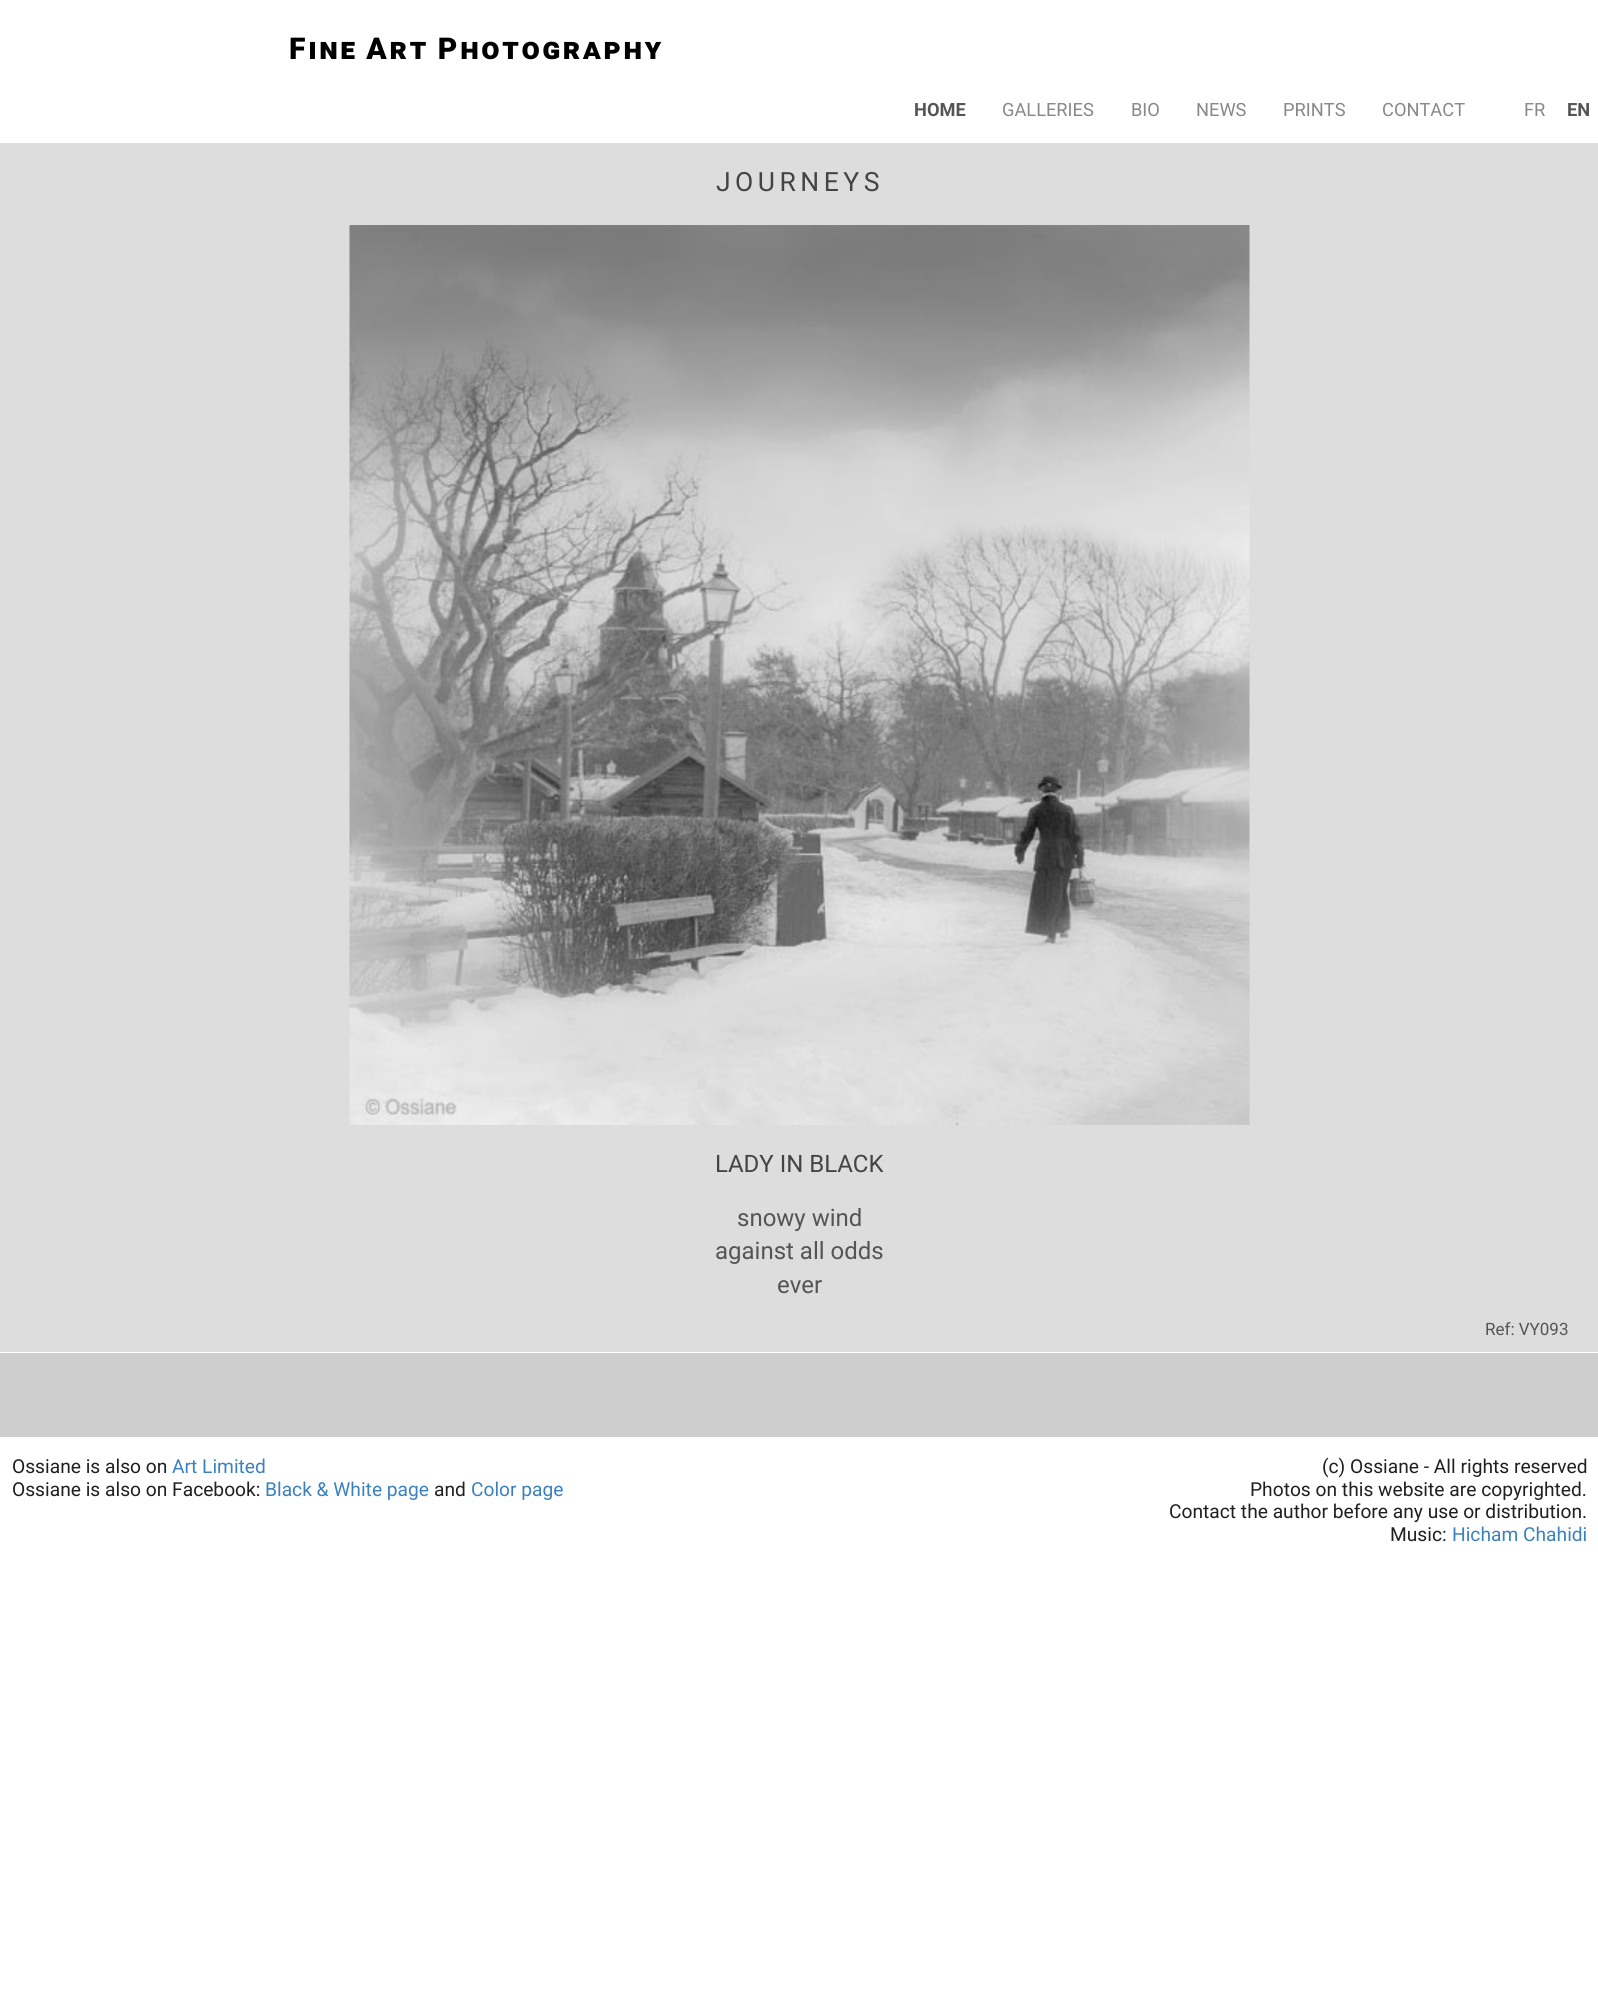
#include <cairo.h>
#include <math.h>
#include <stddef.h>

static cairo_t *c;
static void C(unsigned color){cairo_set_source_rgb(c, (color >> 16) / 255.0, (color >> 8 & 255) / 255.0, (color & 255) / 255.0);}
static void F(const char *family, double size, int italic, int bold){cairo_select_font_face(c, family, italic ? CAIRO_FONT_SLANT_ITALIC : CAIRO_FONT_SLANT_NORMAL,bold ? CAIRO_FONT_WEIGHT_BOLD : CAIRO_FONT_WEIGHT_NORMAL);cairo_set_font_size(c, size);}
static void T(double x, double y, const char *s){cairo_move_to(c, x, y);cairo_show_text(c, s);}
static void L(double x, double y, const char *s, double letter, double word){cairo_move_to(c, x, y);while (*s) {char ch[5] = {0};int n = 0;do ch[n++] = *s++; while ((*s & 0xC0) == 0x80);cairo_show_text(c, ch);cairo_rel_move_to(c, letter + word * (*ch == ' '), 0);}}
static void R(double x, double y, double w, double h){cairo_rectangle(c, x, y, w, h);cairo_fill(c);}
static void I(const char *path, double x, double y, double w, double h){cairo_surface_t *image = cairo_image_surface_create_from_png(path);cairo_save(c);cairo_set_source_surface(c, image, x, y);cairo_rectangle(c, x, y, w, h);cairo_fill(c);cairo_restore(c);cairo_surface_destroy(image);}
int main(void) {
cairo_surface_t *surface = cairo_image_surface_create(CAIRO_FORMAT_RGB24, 1598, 1996);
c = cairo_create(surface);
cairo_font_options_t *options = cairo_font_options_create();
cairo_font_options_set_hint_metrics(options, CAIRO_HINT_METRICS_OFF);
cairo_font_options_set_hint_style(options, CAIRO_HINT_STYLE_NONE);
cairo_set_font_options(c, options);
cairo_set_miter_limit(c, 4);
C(0xffffff);
cairo_paint(c);
F("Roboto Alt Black",30,0,0);
C(0x000000);
L(289,59,"Fine Art Photography",3,-2);
F("Roboto",18.25,0,1);
C(0x555555);
T(914,116,"HOME");
F("Roboto",18.25,0,0);
C(0x888888);
T(1002,116,"GALLERIES");
T(1131,116,"BIO");
T(1196,116,"NEWS");
T(1283,116,"PRINTS");
T(1382,116,"CONTACT");
T(1524,116,"FR");
F("Roboto",18.25,0,1);
C(0x555555);
T(1567,116,"EN");
C(0xdddddd);
R(0,143,1598,1209);
F("Roboto",26.5,0,0);
C(0x444444);
L(716,191,"JOURNEYS",4.5,0);
I("1.png",349,225,901,900);
F("Roboto",24,0,0);
T(715,1172,"LADY IN BLACK");
C(0x555555);
T(737,1226,"snowy wind");
T(715,1259,"against all odds");
T(777,1293,"ever");
F("Roboto",17,0,0);
T(1485,1335,"Ref: VY093");
C(0xcececf);
R(0,1353,1598,84);
F("Roboto",19.2,0,0);
C(0x202020);
T(12,1473,"Ossiane is also on");
C(0x3b81be);
T(172,1473,"Art Limited");
C(0x202020);
T(12,1496,"Ossiane is also on Facebook:");
C(0x3b81be);
T(265,1496,"Black & White page");
C(0x202020);
T(434,1496,"and");
C(0x3b81be);
T(471,1496,"Color page");
C(0x202020);
T(1322,1473,"(c) Ossiane - All rights reserved");
T(1250,1496,"Photos on this website are copyrighted.");
T(1169,1518,"Contact the author before any use or distribution.");
T(1390,1541,"Music:");
C(0x3b81be);
T(1452,1541,"Hicham Chahidi");
cairo_surface_write_to_png(surface, "o.png");
cairo_font_options_destroy(options);
cairo_destroy(c);
cairo_surface_destroy(surface);
return 0;
}
